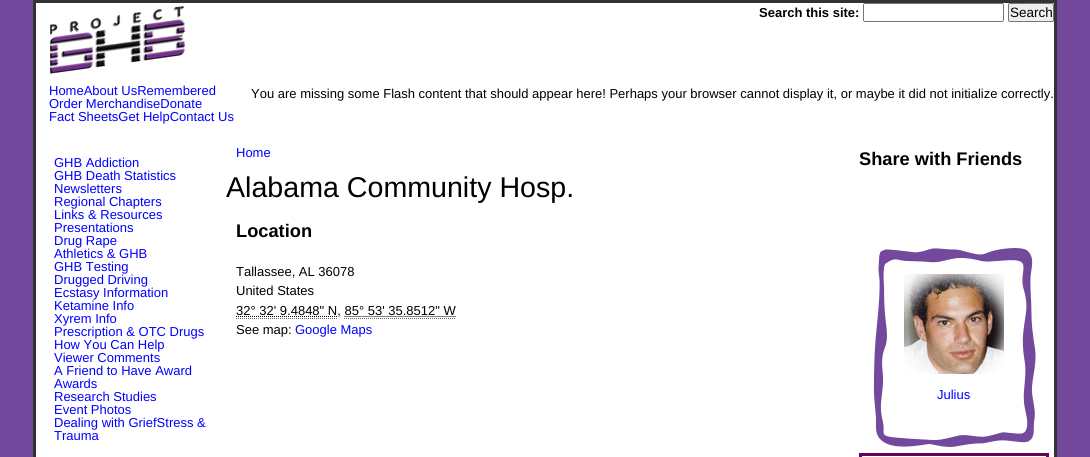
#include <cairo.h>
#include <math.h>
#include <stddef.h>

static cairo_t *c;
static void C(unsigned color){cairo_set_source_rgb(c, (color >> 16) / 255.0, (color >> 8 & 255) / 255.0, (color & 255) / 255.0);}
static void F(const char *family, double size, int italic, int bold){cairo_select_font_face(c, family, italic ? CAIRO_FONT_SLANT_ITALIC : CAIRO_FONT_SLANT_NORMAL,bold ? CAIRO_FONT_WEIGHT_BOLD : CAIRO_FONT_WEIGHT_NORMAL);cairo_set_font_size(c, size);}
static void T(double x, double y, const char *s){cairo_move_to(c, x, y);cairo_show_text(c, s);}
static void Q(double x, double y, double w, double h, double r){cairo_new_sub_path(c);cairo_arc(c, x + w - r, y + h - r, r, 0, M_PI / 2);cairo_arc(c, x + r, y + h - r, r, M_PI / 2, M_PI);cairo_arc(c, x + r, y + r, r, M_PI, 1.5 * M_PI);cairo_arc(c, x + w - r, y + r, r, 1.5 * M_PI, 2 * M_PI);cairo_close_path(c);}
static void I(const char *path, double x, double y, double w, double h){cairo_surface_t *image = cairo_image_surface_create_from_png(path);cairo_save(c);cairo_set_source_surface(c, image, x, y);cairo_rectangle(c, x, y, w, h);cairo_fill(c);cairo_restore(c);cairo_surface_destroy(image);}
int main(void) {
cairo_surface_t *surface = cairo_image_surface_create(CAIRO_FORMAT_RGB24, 1090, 457);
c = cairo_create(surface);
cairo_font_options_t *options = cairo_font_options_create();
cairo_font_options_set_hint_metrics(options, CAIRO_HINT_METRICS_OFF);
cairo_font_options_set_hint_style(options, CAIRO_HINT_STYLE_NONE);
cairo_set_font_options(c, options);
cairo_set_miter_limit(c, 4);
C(0x73499d);
cairo_paint(c);
C(0xffffff);
cairo_rectangle(c,34.5,1.5,1021,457);
cairo_fill_preserve(c);
C(0x333333);
cairo_set_line_width(c,3);
cairo_stroke(c);
F("Liberation Sans",13,0,1);
C(0x000000);
T(759,17,"Search this site:");
Q(863.5,3.5,140,18,1.5);
C(0x767676);
cairo_set_line_width(c,1);
cairo_stroke(c);
C(0xefefef);
Q(1008.5,3.5,45,18,1.5);
cairo_fill_preserve(c);
C(0x767676);
cairo_stroke(c);
F("Liberation Sans",13.5,0,0);
C(0x000000);
T(1010,17,"Search");
I("1.png",50,6,136,68);
F("Liberation Sans",13,0,0);
T(251,98,"You are missing some Flash content that should appear here! Perhaps your browser cannot display it, or maybe it did not initialize correctly.");
C(0x0000ff);
T(49,95,"HomeAbout UsRemembered");
T(49,108,"Order MerchandiseDonate");
T(49,121,"Fact SheetsGet HelpContact Us");
T(54,167,"GHB Addiction");
T(54,180,"GHB Death Statistics");
T(54,193,"Newsletters");
T(54,206,"Regional Chapters");
T(54,219,"Links & Resources");
T(54,232,"Presentations");
T(54,245,"Drug Rape");
T(54,258,"Athletics & GHB");
T(54,271,"GHB Testing");
T(54,284,"Drugged Driving");
T(54,297,"Ecstasy Information");
T(54,310,"Ketamine Info");
T(54,323,"Xyrem Info");
T(54,336,"Prescription & OTC Drugs");
T(54,349,"How You Can Help");
T(54,362,"Viewer Comments");
T(54,375,"A Friend to Have Award");
T(54,388,"Awards");
T(54,401,"Research Studies");
T(54,414,"Event Photos");
T(54,427,"Dealing with GriefStress &");
T(54,440,"Trauma");
T(236,157,"Home");
F("Liberation Sans",28.6,0,0);
C(0x000000);
T(226,197,"Alabama Community Hosp.");
F("Liberation Sans",18.25,0,1);
T(236,237,"Location");
F("Liberation Sans",13,0,0);
T(236,276,"Tallassee, AL 36078");
T(236,295,"United States");
cairo_new_path(c);
cairo_move_to(c,236,316.5);
cairo_line_to(c,337,316.5);
cairo_set_dash(c,(double[]){1,1},2,0);
cairo_stroke(c);
T(236,315,"32° 32' 9.4848\" N, 85° 53' 35.8512\" W");
cairo_new_path(c);
cairo_move_to(c,236,318.5);
cairo_line_to(c,337,318.5);
C(0x666666);
cairo_stroke(c);
cairo_new_path(c);
cairo_move_to(c,344,318.5);
cairo_line_to(c,456,318.5);
cairo_stroke(c);
cairo_new_path(c);
cairo_move_to(c,344.5,316.5);
cairo_line_to(c,456,316.5);
C(0x000000);
cairo_stroke(c);
T(236,334,"See map:");
C(0x0000ff);
T(295,334,"Google Maps");
F("Liberation Sans",18.25,0,1);
C(0x000000);
T(859,165,"Share with Friends");
I("2.png",873,248,163,199);
I("3.png",904,274,100,100);
F("Liberation Sans",13,0,0);
C(0x0000ff);
T(937,399,"Julius");
cairo_rectangle(c,860.5,454.5,187,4);
C(0x660066);
cairo_set_line_width(c,3);
cairo_set_dash(c,NULL,0,0);
cairo_stroke(c);
cairo_surface_write_to_png(surface, "o.png");
cairo_font_options_destroy(options);
cairo_destroy(c);
cairo_surface_destroy(surface);
return 0;
}
